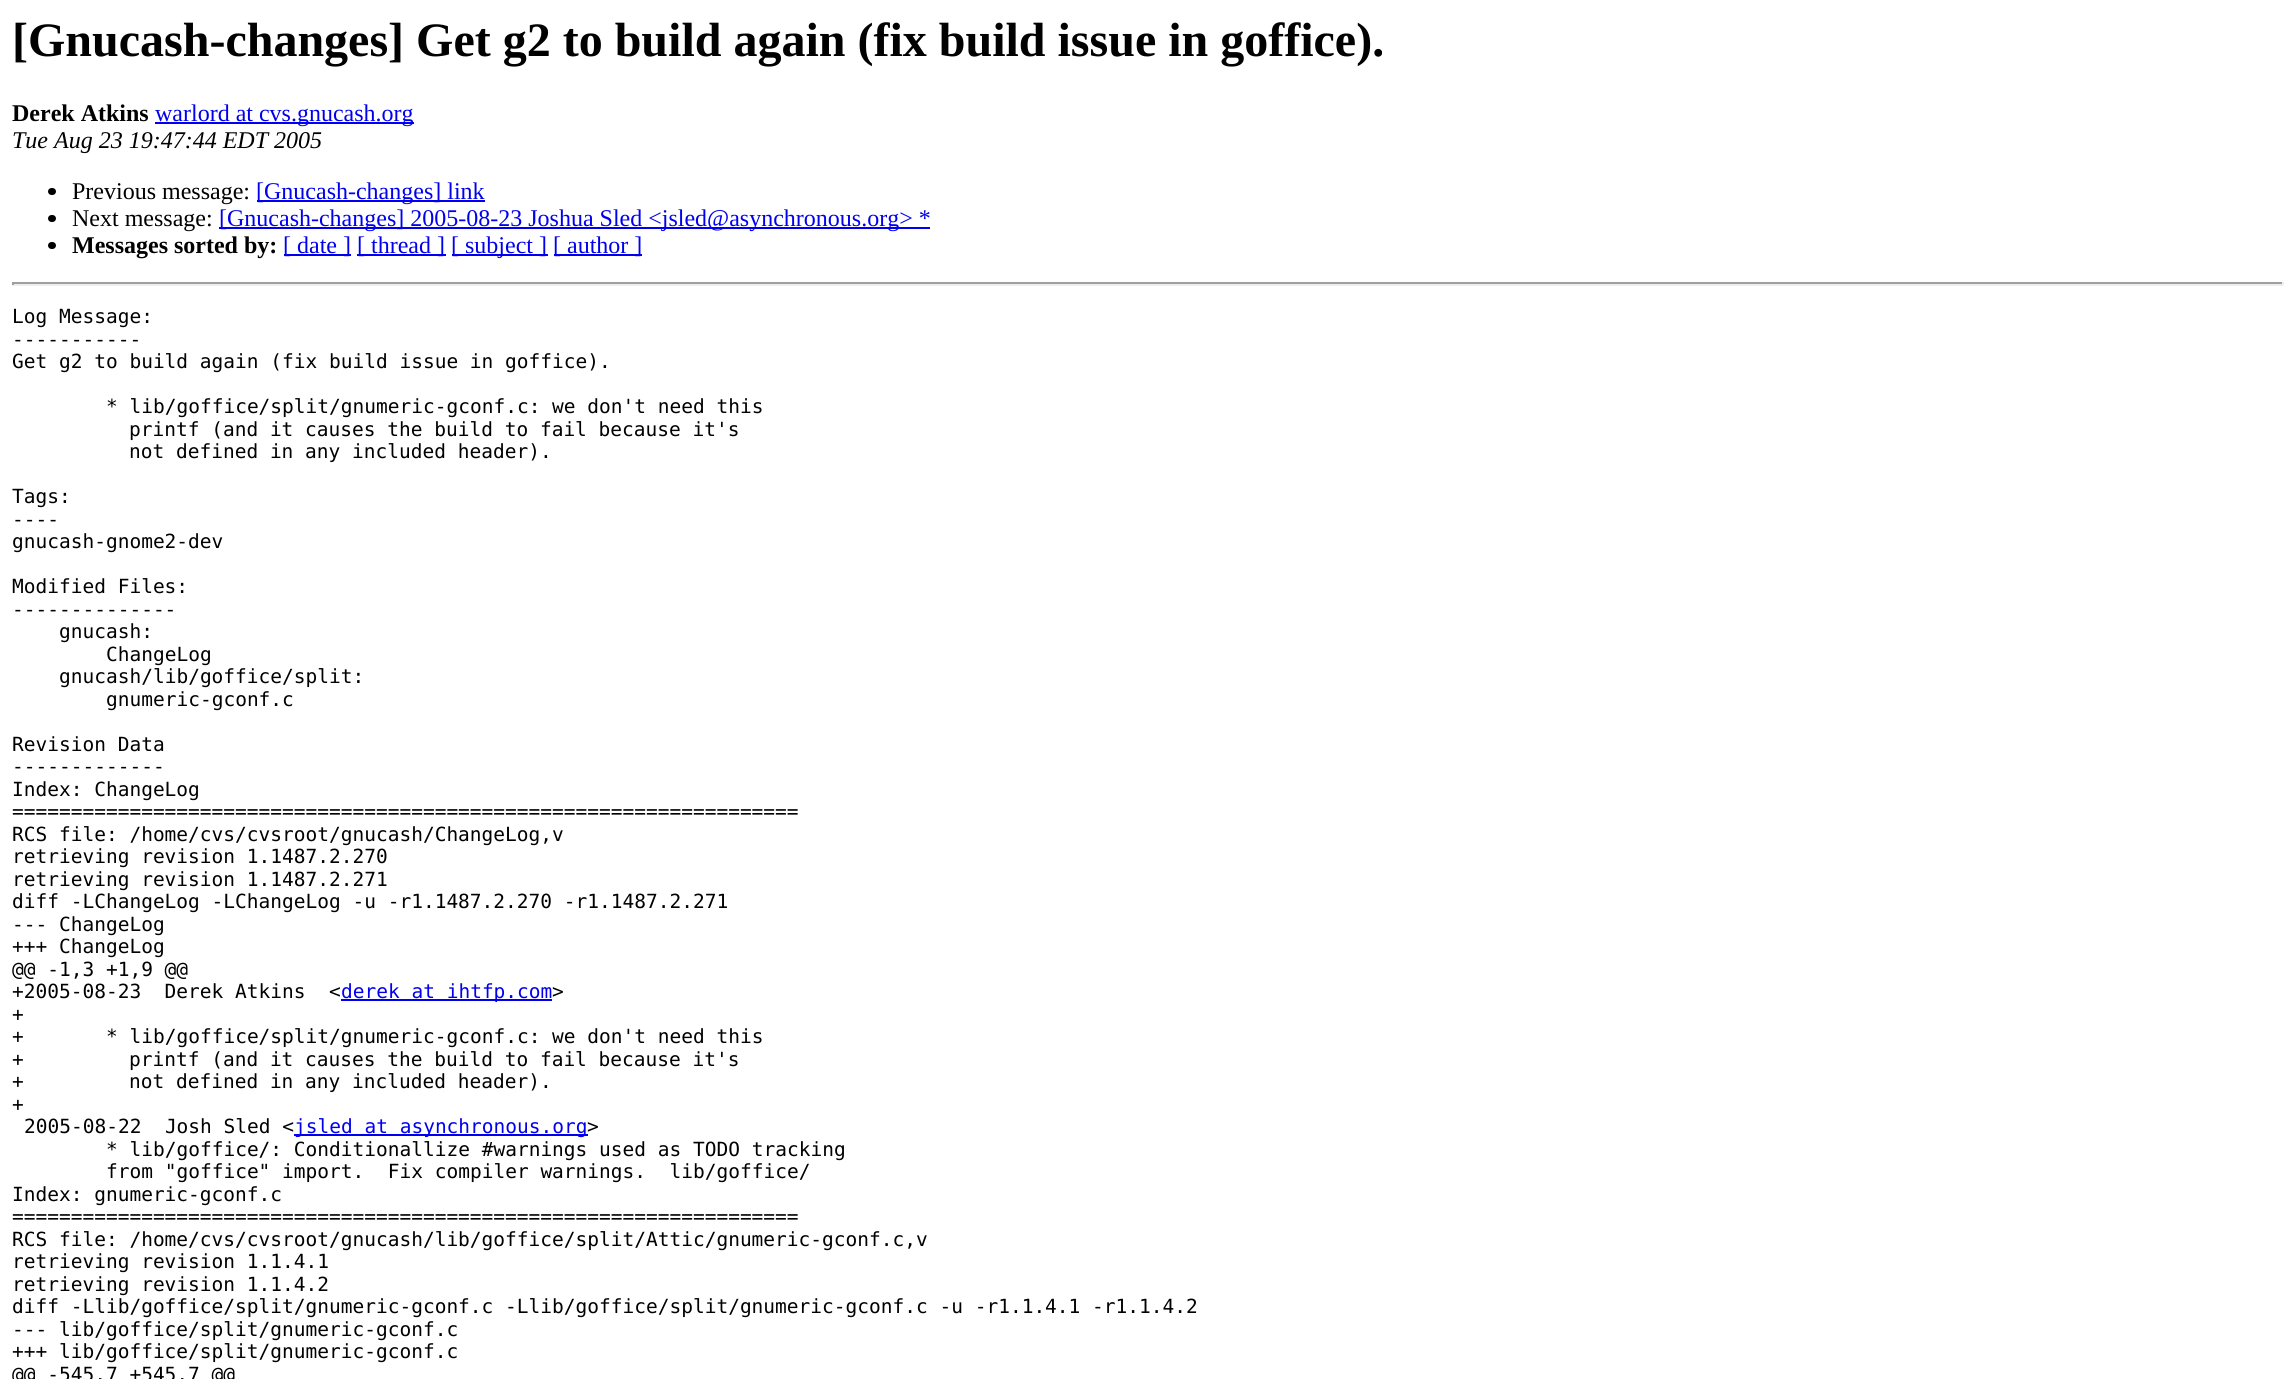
#include <cairo.h>
#include <math.h>
#include <stddef.h>

static cairo_t *c;
static void C(unsigned color){cairo_set_source_rgb(c, (color >> 16) / 255.0, (color >> 8 & 255) / 255.0, (color & 255) / 255.0);}
static void F(const char *family, double size, int italic, int bold){cairo_select_font_face(c, family, italic ? CAIRO_FONT_SLANT_ITALIC : CAIRO_FONT_SLANT_NORMAL,bold ? CAIRO_FONT_WEIGHT_BOLD : CAIRO_FONT_WEIGHT_NORMAL);cairo_set_font_size(c, size);}
static void T(double x, double y, const char *s){cairo_move_to(c, x, y);cairo_show_text(c, s);}
static void R(double x, double y, double w, double h){cairo_rectangle(c, x, y, w, h);cairo_fill(c);}
static void Q(double x, double y, double w, double h, double r){cairo_new_sub_path(c);cairo_arc(c, x + w - r, y + h - r, r, 0, M_PI / 2);cairo_arc(c, x + r, y + h - r, r, M_PI / 2, M_PI);cairo_arc(c, x + r, y + r, r, M_PI, 1.5 * M_PI);cairo_arc(c, x + w - r, y + r, r, 1.5 * M_PI, 2 * M_PI);cairo_close_path(c);}
int main(void) {
cairo_surface_t *surface = cairo_image_surface_create(CAIRO_FORMAT_RGB24, 2295, 1379);
c = cairo_create(surface);
cairo_font_options_t *options = cairo_font_options_create();
cairo_font_options_set_hint_metrics(options, CAIRO_HINT_METRICS_OFF);
cairo_font_options_set_hint_style(options, CAIRO_HINT_STYLE_NONE);
cairo_set_font_options(c, options);
cairo_set_miter_limit(c, 4);
C(0xffffff);
cairo_paint(c);
F("Liberation Serif",48,0,1);
C(0x000000);
T(12,56,"[Gnucash-changes] Get g2 to build again (fix build issue in goffice).");
F("Liberation Serif",24,0,1);
T(12,121,"Derek Atkins");
C(0x0000ee);
R(155,122,259,2);
F("Liberation Serif",24,0,0);
T(155,121,"warlord at cvs.gnucash.org");
F("Liberation Serif",24,1,0);
C(0x000000);
T(12,148,"Tue Aug 23 19:47:44 EDT 2005");
Q(48,188,8,7,3.5);
cairo_fill(c);
F("Liberation Serif",24,0,0);
T(72,199,"Previous message:");
C(0x0000ee);
R(257,200,228,2);
T(256,199,"[Gnucash-changes] link");
C(0x000000);
Q(48,215,8,7,3.5);
cairo_fill(c);
T(72,226,"Next message:");
C(0x0000ee);
R(219,227,711,2);
T(219,226,"[Gnucash-changes] 2005-08-23 Joshua Sled <jsled@asynchronous.org> *");
C(0x000000);
Q(48,242,8,7,3.5);
cairo_fill(c);
F("Liberation Serif",24,0,1);
T(72,253,"Messages sorted by:");
C(0x0000ee);
R(284,254,67,2);
F("Liberation Serif",24,0,0);
T(283,253,"[ date ]");
R(357,254,89,2);
T(357,253,"[ thread ]");
R(452,254,96,2);
T(451,253,"[ subject ]");
R(554,254,88,2);
T(553,253,"[ author ]");
C(0x9f9f9f);
R(12,282,2271,2);
C(0xeeeeee);
R(2282,282,2,3);
R(12,284,2271,2);
C(0x9f9f9f);
R(12,282,2,3);
F("DejaVu Sans Mono",19.5,0,0);
C(0x000000);
T(12,323,"Log Message:");
T(12,346,"-----------");
T(12,368,"Get g2 to build again (fix build issue in goffice).");
T(106,413,"* lib/goffice/split/gnumeric-gconf.c: we don't need this");
T(129,436,"printf (and it causes the build to fail because it's");
T(129,458,"not defined in any included header).");
T(12,503,"Tags:");
T(12,526,"----");
T(12,548,"gnucash-gnome2-dev");
T(12,593,"Modified Files:");
T(12,616,"--------------");
T(59,638,"gnucash:");
T(106,661,"ChangeLog");
T(59,683,"gnucash/lib/goffice/split:");
T(106,706,"gnumeric-gconf.c");
T(12,751,"Revision Data");
T(12,773,"-------------");
T(12,796,"Index: ChangeLog");
T(12,818,"===================================================================");
T(12,841,"RCS file: /home/cvs/cvsroot/gnucash/ChangeLog,v");
T(12,863,"retrieving revision 1.1487.2.270");
T(12,886,"retrieving revision 1.1487.2.271");
T(12,908,"diff -LChangeLog -LChangeLog -u -r1.1487.2.270 -r1.1487.2.271");
T(12,931,"--- ChangeLog");
T(12,953,"+++ ChangeLog");
T(12,976,"@@ -1,3 +1,9 @@");
T(12,998,"+2005-08-23  Derek Atkins  <");
C(0x0000ee);
R(341,999,211,2);
T(341,998,"derek at ihtfp.com");
C(0x000000);
T(552,998,">");
T(12,1021,"+");
T(12,1043,"+");
T(106,1043,"* lib/goffice/split/gnumeric-gconf.c: we don't need this");
T(12,1066,"+");
T(129,1066,"printf (and it causes the build to fail because it's");
T(12,1088,"+");
T(129,1088,"not defined in any included header).");
T(12,1111,"+");
T(24,1133,"2005-08-22  Josh Sled <");
C(0x0000ee);
R(294,1134,294,2);
T(294,1133,"jsled at asynchronous.org");
C(0x000000);
T(587,1133,">");
T(106,1156,"* lib/goffice/: Conditionallize #warnings used as TODO tracking");
T(106,1178,"from \"goffice\" import.  Fix compiler warnings.  lib/goffice/");
T(12,1201,"Index: gnumeric-gconf.c");
T(12,1223,"===================================================================");
T(12,1246,"RCS file: /home/cvs/cvsroot/gnucash/lib/goffice/split/Attic/gnumeric-gconf.c,v");
T(12,1268,"retrieving revision 1.1.4.1");
T(12,1291,"retrieving revision 1.1.4.2");
T(12,1313,"diff -Llib/goffice/split/gnumeric-gconf.c -Llib/goffice/split/gnumeric-gconf.c -u -r1.1.4.1 -r1.1.4.2");
T(12,1336,"--- lib/goffice/split/gnumeric-gconf.c");
T(12,1358,"+++ lib/goffice/split/gnumeric-gconf.c");
T(12,1381,"@@ -545,7 +545,7 @@");
cairo_surface_write_to_png(surface, "o.png");
cairo_font_options_destroy(options);
cairo_destroy(c);
cairo_surface_destroy(surface);
return 0;
}
